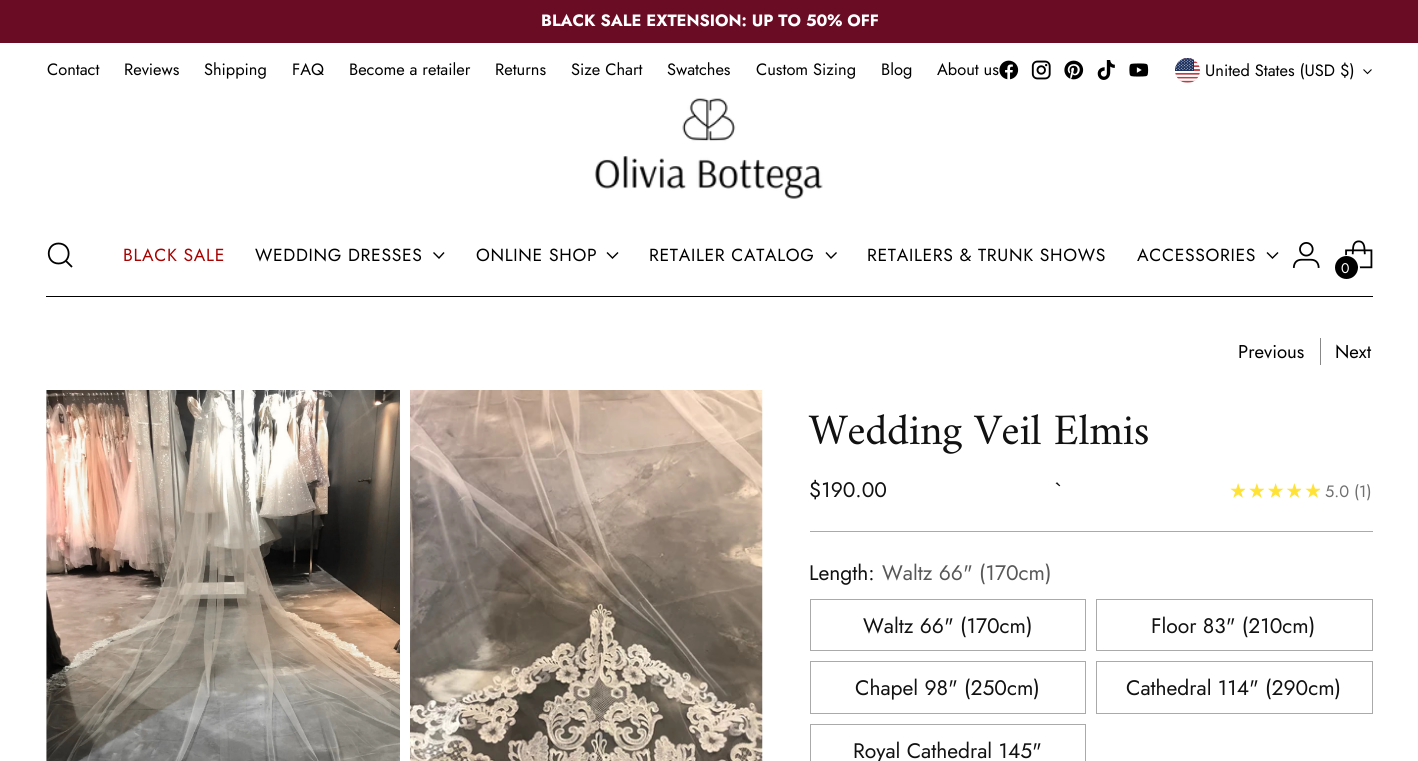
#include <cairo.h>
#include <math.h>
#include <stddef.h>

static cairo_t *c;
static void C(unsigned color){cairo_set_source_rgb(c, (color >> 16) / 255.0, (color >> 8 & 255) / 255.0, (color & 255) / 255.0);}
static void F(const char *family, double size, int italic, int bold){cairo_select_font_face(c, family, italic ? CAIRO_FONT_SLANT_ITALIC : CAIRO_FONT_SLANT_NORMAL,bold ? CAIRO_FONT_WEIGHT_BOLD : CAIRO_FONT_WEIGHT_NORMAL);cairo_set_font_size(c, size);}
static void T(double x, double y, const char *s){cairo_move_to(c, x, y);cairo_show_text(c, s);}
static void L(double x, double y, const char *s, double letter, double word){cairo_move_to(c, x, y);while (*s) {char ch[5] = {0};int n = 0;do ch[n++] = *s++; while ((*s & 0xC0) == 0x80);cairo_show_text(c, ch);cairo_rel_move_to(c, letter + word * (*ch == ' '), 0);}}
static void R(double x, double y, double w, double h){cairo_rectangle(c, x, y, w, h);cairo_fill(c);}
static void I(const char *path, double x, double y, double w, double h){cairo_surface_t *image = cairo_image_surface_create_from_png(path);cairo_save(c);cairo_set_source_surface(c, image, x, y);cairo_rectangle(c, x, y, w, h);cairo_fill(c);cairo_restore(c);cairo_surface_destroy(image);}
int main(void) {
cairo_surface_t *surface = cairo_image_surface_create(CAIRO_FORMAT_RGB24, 1418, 761);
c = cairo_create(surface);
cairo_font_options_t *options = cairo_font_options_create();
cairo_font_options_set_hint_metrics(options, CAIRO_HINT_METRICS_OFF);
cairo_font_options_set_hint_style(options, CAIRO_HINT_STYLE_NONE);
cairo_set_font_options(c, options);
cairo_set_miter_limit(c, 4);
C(0xffffff);
cairo_paint(c);
C(0x6a0d24);
R(0,0,1418,43);
F("Jost",16.4,0,1);
C(0xffffff);
T(541,26,"BLACK SALE EXTENSION: UP TO 50% OFF");
C(0x000000);
R(46,296,1327,1);
F("Jost",16.4,0,0);
T(47,75,"Contact");
T(124,75,"Reviews");
T(204,75,"Shipping");
T(292,75,"FAQ");
T(349,75,"Become a retailer");
T(495,75,"Returns");
T(571,75,"Size Chart");
T(667,75,"Swatches");
T(756,75,"Custom Sizing");
T(881,75,"Blog");
T(937,75,"About us");
I("1.png",999,60,20,20);
I("2.png",1031,60,20,20);
I("3.png",1064,60,20,20);
I("4.png",1097,60,18,20);
I("5.png",1129,63,20,14);
I("6.png",1175,58,25,25);
T(1205,76,"United States (USD $)");
cairo_new_path(c);
cairo_move_to(c,1363.5,69.5);
cairo_line_to(c,1367.5,73.5);
cairo_line_to(c,1371.5,69.5);
cairo_set_line_width(c,1.1);
cairo_stroke(c);
I("7.png",594,98,229,101);
cairo_new_path(c);
cairo_move_to(c,58.5,263.5);
cairo_curve_to(c,72,263.5,72,243.5,58.5,243.5);
cairo_curve_to(c,45.5,243.5,45.5,263.5,58.5,263.5);
cairo_close_path(c);
cairo_set_line_width(c,1.8);
cairo_set_line_cap(c,CAIRO_LINE_CAP_ROUND);
cairo_stroke(c);
cairo_new_path(c);
cairo_move_to(c,66,261);
cairo_line_to(c,72,267);
cairo_set_line_cap(c,CAIRO_LINE_CAP_BUTT);
cairo_stroke(c);
F("Jost",17.5,0,0);
C(0xa70100);
L(123,261,"BLACK SALE",.7,0);
C(0x000000);
L(255,261,"WEDDING DRESSES",.7,0);
cairo_new_path(c);
cairo_move_to(c,433.5,252.5);
cairo_line_to(c,439,258);
cairo_line_to(c,444,252.5);
cairo_set_line_width(c,1.4);
cairo_stroke(c);
L(476,261,"ONLINE SHOP",.7,0);
cairo_new_path(c);
cairo_move_to(c,607,252.5);
cairo_line_to(c,612.5,258);
cairo_line_to(c,618,252.5);
cairo_stroke(c);
L(649,261,"RETAILER CATALOG",.7,0);
cairo_new_path(c);
cairo_move_to(c,826,252.5);
cairo_line_to(c,831,258);
cairo_line_to(c,836.5,252.5);
cairo_stroke(c);
L(867,261,"RETAILERS & TRUNK SHOWS",.7,0);
L(1137,261,"ACCESSORIES",.7,0);
cairo_new_path(c);
cairo_move_to(c,1267,252.5);
cairo_line_to(c,1272.5,258);
cairo_line_to(c,1278,252.5);
cairo_stroke(c);
I("8.png",1292,242,28,26);
I("9.png",1345,240,28,29);
cairo_arc(c,1347,268,12,0,2 * M_PI);
C(0xffffff);
cairo_set_line_width(c,2);
cairo_stroke(c);
C(0x000000);
cairo_arc(c,1346.5,267.5,11.5,0,2 * M_PI);
cairo_fill(c);
F("Jost",14,0,0);
C(0xffffff);
T(1341,273,"0");
F("Jost",18.5,0,0);
C(0x000000);
T(1238,358,"Previous");
C(0x888888);
R(1320,338,1,27);
C(0x000000);
T(1335,358,"Next");
I("10.png",46,390,354,371);
I("11.png",410,390,353,371);
C(0xaaaaaa);
R(810,531,563,1);
F("Amiri",44,0,0);
C(0x111111);
L(809,444,"Wedding Veil Elmis",-.4,0);
F("Jost",21,0,0);
T(809,497,"$190.00");
T(1054,497,"`");
I("12.png",1230,483,15,15);
I("13.png",1249,483,15,15);
I("14.png",1268,483,15,15);
I("15.png",1286,483,15,15);
I("12.png",1305,483,15,15);
F("Jost",16.4,0,0);
C(0x707070);
T(1325,497,"5.0 (1)");
F("Jost",21,0,0);
C(0x111111);
T(809,580,"Length:");
C(0x585858);
T(882,580,"Waltz 66\" (170cm)");
cairo_rectangle(c,810.5,599.5,275,51);
C(0xaaaaaa);
cairo_set_line_width(c,1);
cairo_stroke(c);
C(0x111111);
T(863,633,"Waltz 66\" (170cm)");
cairo_rectangle(c,1096.5,599.5,276,51);
C(0xaaaaaa);
cairo_stroke(c);
C(0x111111);
T(1151,633,"Floor 83\" (210cm)");
cairo_rectangle(c,810.5,661.5,275,52);
C(0xaaaaaa);
cairo_stroke(c);
C(0x111111);
T(855,695,"Chapel 98\" (250cm)");
cairo_rectangle(c,1096.5,661.5,276,52);
C(0xaaaaaa);
cairo_stroke(c);
C(0x111111);
T(1126,695,"Cathedral 114\" (290cm)");
cairo_rectangle(c,810.5,724.5,275,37);
C(0xaaaaaa);
cairo_stroke(c);
C(0x111111);
T(853,758,"Royal Cathedral 145\"");
cairo_surface_write_to_png(surface, "o.png");
cairo_font_options_destroy(options);
cairo_destroy(c);
cairo_surface_destroy(surface);
return 0;
}
